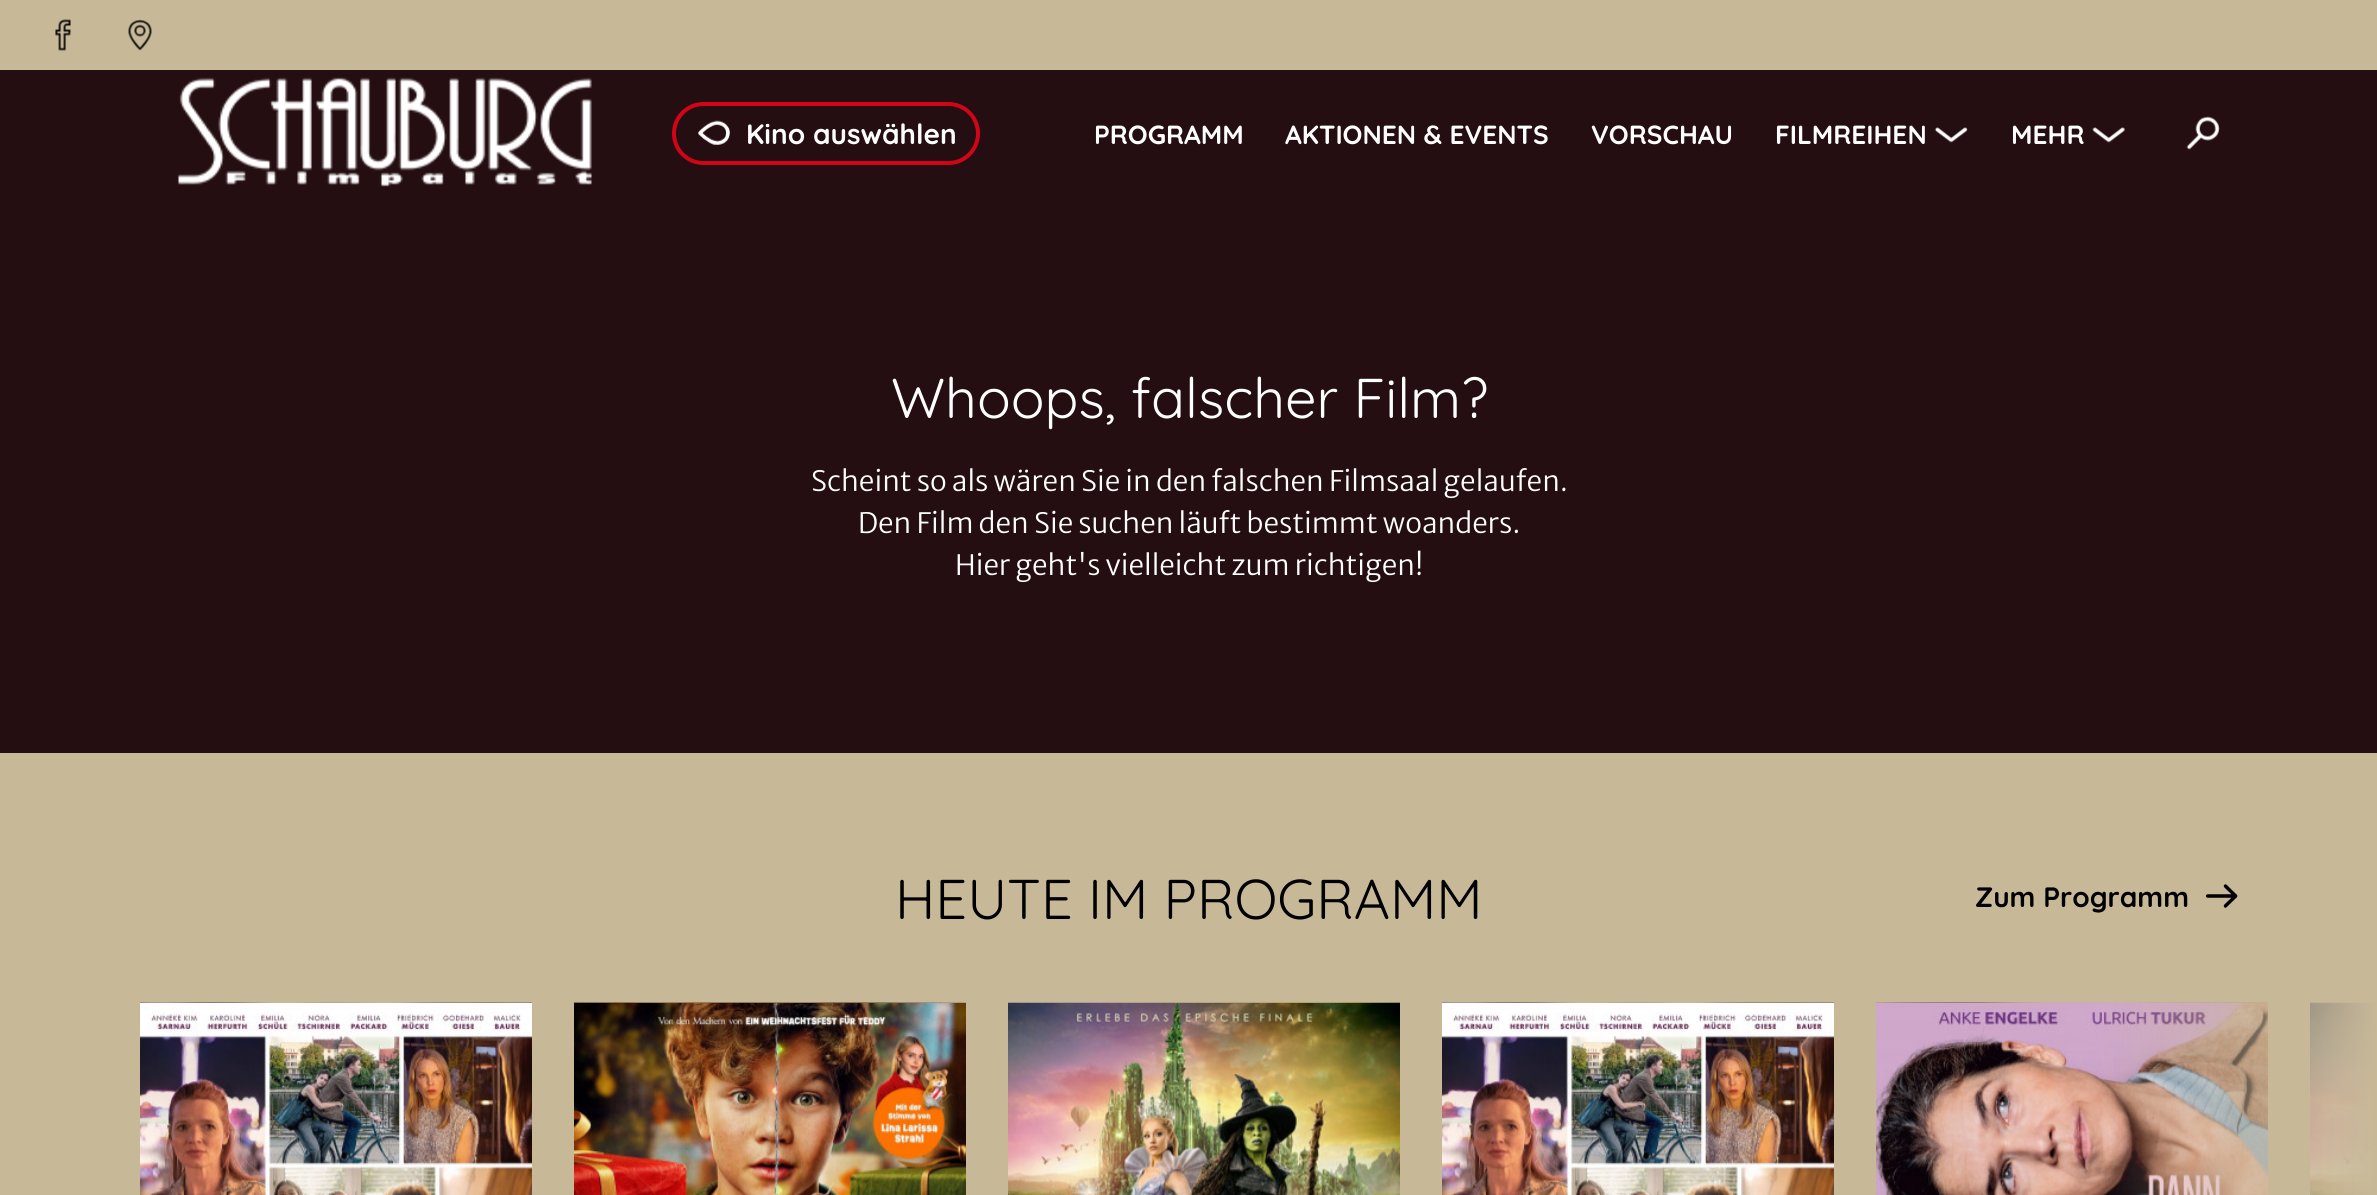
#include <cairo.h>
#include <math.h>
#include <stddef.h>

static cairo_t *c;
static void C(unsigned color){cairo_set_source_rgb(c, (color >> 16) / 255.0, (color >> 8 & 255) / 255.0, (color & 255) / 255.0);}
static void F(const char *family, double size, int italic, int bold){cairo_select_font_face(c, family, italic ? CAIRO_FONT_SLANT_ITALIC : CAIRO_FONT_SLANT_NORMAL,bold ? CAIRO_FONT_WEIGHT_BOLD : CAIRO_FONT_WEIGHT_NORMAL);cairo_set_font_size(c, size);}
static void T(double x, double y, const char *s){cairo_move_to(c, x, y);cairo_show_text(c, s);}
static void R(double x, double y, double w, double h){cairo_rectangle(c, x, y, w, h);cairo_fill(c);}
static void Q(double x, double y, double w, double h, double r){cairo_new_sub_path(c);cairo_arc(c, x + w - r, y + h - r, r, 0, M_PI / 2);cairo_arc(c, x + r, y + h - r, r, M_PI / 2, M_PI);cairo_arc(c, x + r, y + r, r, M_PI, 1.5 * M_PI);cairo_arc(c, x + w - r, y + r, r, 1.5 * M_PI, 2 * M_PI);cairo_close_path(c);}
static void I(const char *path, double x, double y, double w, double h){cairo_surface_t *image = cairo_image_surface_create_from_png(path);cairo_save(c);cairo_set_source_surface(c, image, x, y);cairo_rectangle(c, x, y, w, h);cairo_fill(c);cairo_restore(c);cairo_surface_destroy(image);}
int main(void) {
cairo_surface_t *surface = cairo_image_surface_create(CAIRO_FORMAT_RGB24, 2377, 1195);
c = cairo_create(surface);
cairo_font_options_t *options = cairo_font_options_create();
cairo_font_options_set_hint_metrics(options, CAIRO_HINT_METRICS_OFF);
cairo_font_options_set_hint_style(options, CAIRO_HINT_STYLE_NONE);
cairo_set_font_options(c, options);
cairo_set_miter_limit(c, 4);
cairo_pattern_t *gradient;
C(0x240e11);
cairo_paint(c);
C(0xc7b898);
R(0,0,2377,70);
I("1.png",55,19,16,32);
I("2.png",128,19,24,32);
I("3.png",178,77,414,110);
Q(674,104,304,59,29.5);
C(0xd10418);
cairo_set_line_width(c,4);
cairo_stroke(c);
I("4.png",698,120,32,25);
F("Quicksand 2 Light",28,0,0);
C(0xffffff);
T(746,144,"Kino auswählen");
F("Quicksand 2 Light",26.25,0,0);
T(1094,144,"PROGRAMM");
T(1285,144,"AKTIONEN & EVENTS");
T(1591,144,"VORSCHAU");
T(1775,144,"FILMREIHEN");
I("5.png",1934,127,34,16);
T(2011,144,"MEHR");
I("6.png",2092,127,33,16);
I("7.png",2186,116,34,34);
F("Quicksand Light",56,0,0);
T(891,418,"Whoops, falscher Film?");
F("Merriweather Sans Light",28,0,0);
T(811,491,"Scheint so als wären Sie in den falschen Filmsaal gelaufen.");
T(858,533,"Den Film den Sie suchen läuft bestimmt woanders.");
T(955,575,"Hier geht's vielleicht zum richtigen!");
C(0xc7b898);
R(0,753,2377,442);
F("Quicksand Light",56,0,0);
C(0x000000);
T(895,919,"HEUTE IM PROGRAMM");
F("Quicksand 2 Light",28,0,0);
T(1975,907,"Zum Programm");
I("8.png",2205,884,33,24);
I("9.png",140,1002,392,1);
I("10.png",140,1003,392,192);
I("11.png",574,1002,392,1);
I("12.png",574,1003,392,192);
I("13.png",1008,1002,392,1);
I("14.png",1008,1003,392,192);
I("9.png",1442,1002,392,1);
I("15.png",1442,1003,392,192);
I("16.png",1876,1002,392,1);
I("17.png",1876,1003,392,192);
I("18.png",2310,1002,66,1);
I("19.png",2310,1003,66,192);
gradient = cairo_pattern_create_linear(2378,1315,2098,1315);
cairo_pattern_add_color_stop_rgba(gradient,0,0.78,0.722,0.596,1);
cairo_pattern_add_color_stop_rgba(gradient,1,0.78,0.722,0.596,0);
cairo_set_source(c,gradient);
cairo_pattern_destroy(gradient);
R(2104,1002,272,193);
cairo_surface_write_to_png(surface, "o.png");
cairo_font_options_destroy(options);
cairo_destroy(c);
cairo_surface_destroy(surface);
return 0;
}
